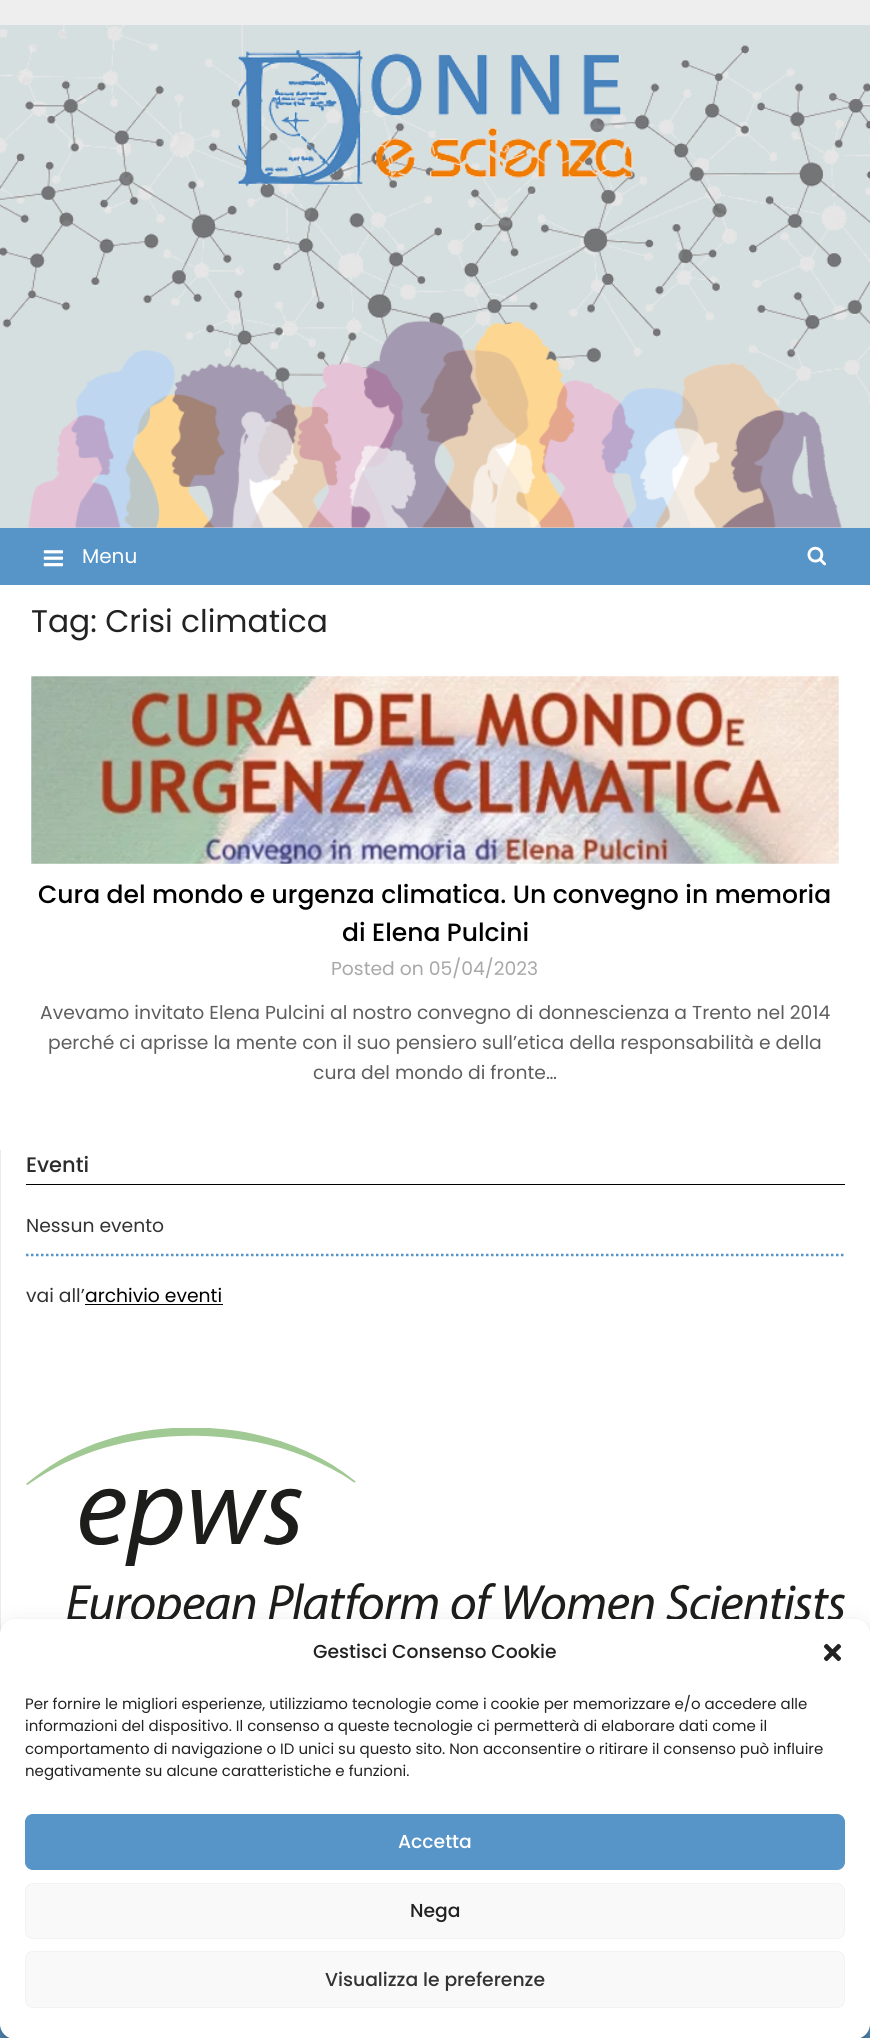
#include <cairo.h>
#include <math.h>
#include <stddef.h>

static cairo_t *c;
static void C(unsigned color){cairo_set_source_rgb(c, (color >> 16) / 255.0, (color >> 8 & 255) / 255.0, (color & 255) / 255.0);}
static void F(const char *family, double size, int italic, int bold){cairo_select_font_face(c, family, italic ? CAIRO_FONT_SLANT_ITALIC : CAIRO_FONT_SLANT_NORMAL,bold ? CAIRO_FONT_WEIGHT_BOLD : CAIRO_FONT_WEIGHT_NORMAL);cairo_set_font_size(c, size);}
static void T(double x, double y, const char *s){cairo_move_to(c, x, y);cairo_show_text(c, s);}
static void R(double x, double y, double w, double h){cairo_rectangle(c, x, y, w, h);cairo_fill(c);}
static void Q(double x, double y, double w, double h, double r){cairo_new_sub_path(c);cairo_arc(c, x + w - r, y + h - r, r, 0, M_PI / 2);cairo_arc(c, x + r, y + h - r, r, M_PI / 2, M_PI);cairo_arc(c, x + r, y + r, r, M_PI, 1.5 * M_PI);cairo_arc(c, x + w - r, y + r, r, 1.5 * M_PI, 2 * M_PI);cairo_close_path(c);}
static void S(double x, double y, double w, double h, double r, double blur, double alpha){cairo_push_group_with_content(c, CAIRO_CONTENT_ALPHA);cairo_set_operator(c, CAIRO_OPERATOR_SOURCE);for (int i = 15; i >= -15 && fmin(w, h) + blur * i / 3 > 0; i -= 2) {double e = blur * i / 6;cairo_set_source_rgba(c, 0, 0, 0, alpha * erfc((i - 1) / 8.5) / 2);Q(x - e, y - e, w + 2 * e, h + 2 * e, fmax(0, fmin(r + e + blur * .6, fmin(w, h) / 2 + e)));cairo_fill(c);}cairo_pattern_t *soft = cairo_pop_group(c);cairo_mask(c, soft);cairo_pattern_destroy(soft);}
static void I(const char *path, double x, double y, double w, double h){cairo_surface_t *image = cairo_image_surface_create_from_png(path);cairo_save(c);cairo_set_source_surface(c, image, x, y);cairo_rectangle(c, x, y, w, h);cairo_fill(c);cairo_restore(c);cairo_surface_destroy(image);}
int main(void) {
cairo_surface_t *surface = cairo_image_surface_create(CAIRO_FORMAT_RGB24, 870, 2038);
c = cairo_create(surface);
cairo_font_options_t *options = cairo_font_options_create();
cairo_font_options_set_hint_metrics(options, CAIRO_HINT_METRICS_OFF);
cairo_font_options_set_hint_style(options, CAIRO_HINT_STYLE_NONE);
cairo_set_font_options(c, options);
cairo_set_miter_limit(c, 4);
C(0xeeeeee);
cairo_paint(c);
C(0xd6dfdf);
R(0,25,870,503);
I("1.png",0,25,870,382);
I("2.png",237,50,396,137);
I("3.png",28,320,814,208);
C(0x5795c8);
R(0,528,870,57);
I("4.png",43,550,21,17);
F("Poppins",20,0,0);
C(0xffffff);
T(82,563,"Menu");
I("5.png",807,546,19,20);
R(0,585,870,1049);
F("Poppins",31.25,0,0);
C(0x222222);
T(31,632,"Tag: Crisi climatica");
I("6.png",31,676,808,188);
F("Poppins Medium",25,0,0);
C(0x000000);
T(38,903,"Cura del mondo e urgenza climatica. Un convegno in memoria");
T(342,941,"di Elena Pulcini");
F("Poppins",18.75,0,0);
C(0xa8a8a8);
T(331,975,"Posted on 05/04/2023");
C(0x5e5e5e);
T(40,1019,"Avevamo invitato Elena Pulcini al nostro convegno di donnescienza a Trento nel 2014");
T(48,1049,"perché ci aprisse la mente con il suo pensiero sull’etica della responsabilità e della");
T(313,1079,"cura del mondo di fronte…");
C(0xececec);
R(0,1150,1,490);
C(0x000000);
R(26,1184,819,1);
F("Poppins Medium",21,0,0);
C(0x2b2b2b);
T(26,1172,"Eventi");
cairo_new_path(c);
cairo_move_to(c,26,1255);
cairo_line_to(c,845,1255);
C(0x5795c8);
cairo_set_line_width(c,2.5);
cairo_set_dash(c,(double[]){2.5,2.5},2,0);
cairo_stroke(c);
F("Poppins",18.75,0,0);
C(0x333333);
T(26,1232,"Nessun evento");
T(26,1302,"vai all’");
C(0x000000);
T(85,1302,"archivio eventi");
R(85,1304,138,1);
I("7.png",26,1428,819,191);
C(0x5795c8);
R(0,2024,870,14);
C(0x000000);
S(0,1626,870,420,15,4,.23);
S(0,1631,870,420,15,12.5,.19);
C(0xffffff);
Q(0,1619,870,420,15);
cairo_fill(c);
F("Poppins Medium",18.75,0,0);
C(0x222222);
T(313,1658,"Gestisci Consenso Cookie");
I("8.png",823,1643,19,19);
F("Poppins",15,0,0);
T(25,1709,"Per fornire le migliori esperienze, utilizziamo tecnologie come i cookie per memorizzare e/o accedere alle");
T(25,1731,"informazioni del dispositivo. Il consenso a queste tecnologie ci permetterà di elaborare dati come il");
T(25,1754,"comportamento di navigazione o ID unici su questo sito. Non acconsentire o ritirare il consenso può influire");
T(25,1776,"negativamente su alcune caratteristiche e funzioni.");
C(0x5795c8);
Q(25.5,1814.5,819,55,7.5);
cairo_fill_preserve(c);
cairo_set_line_width(c,1);
cairo_set_dash(c,NULL,0,0);
cairo_stroke(c);
F("Poppins Medium",18.75,0,0);
C(0xffffff);
T(398,1848,"Accetta");
C(0xf9f9f9);
Q(25.5,1883.5,819,55,7.5);
cairo_fill_preserve(c);
C(0xf2f2f2);
cairo_stroke(c);
C(0x222222);
T(410,1917,"Nega");
C(0xf9f9f9);
Q(25.5,1951.5,819,56,7.5);
cairo_fill_preserve(c);
C(0xf2f2f2);
cairo_stroke(c);
C(0x333333);
T(325,1986,"Visualizza le preferenze");
cairo_surface_write_to_png(surface, "o.png");
cairo_font_options_destroy(options);
cairo_destroy(c);
cairo_surface_destroy(surface);
return 0;
}
